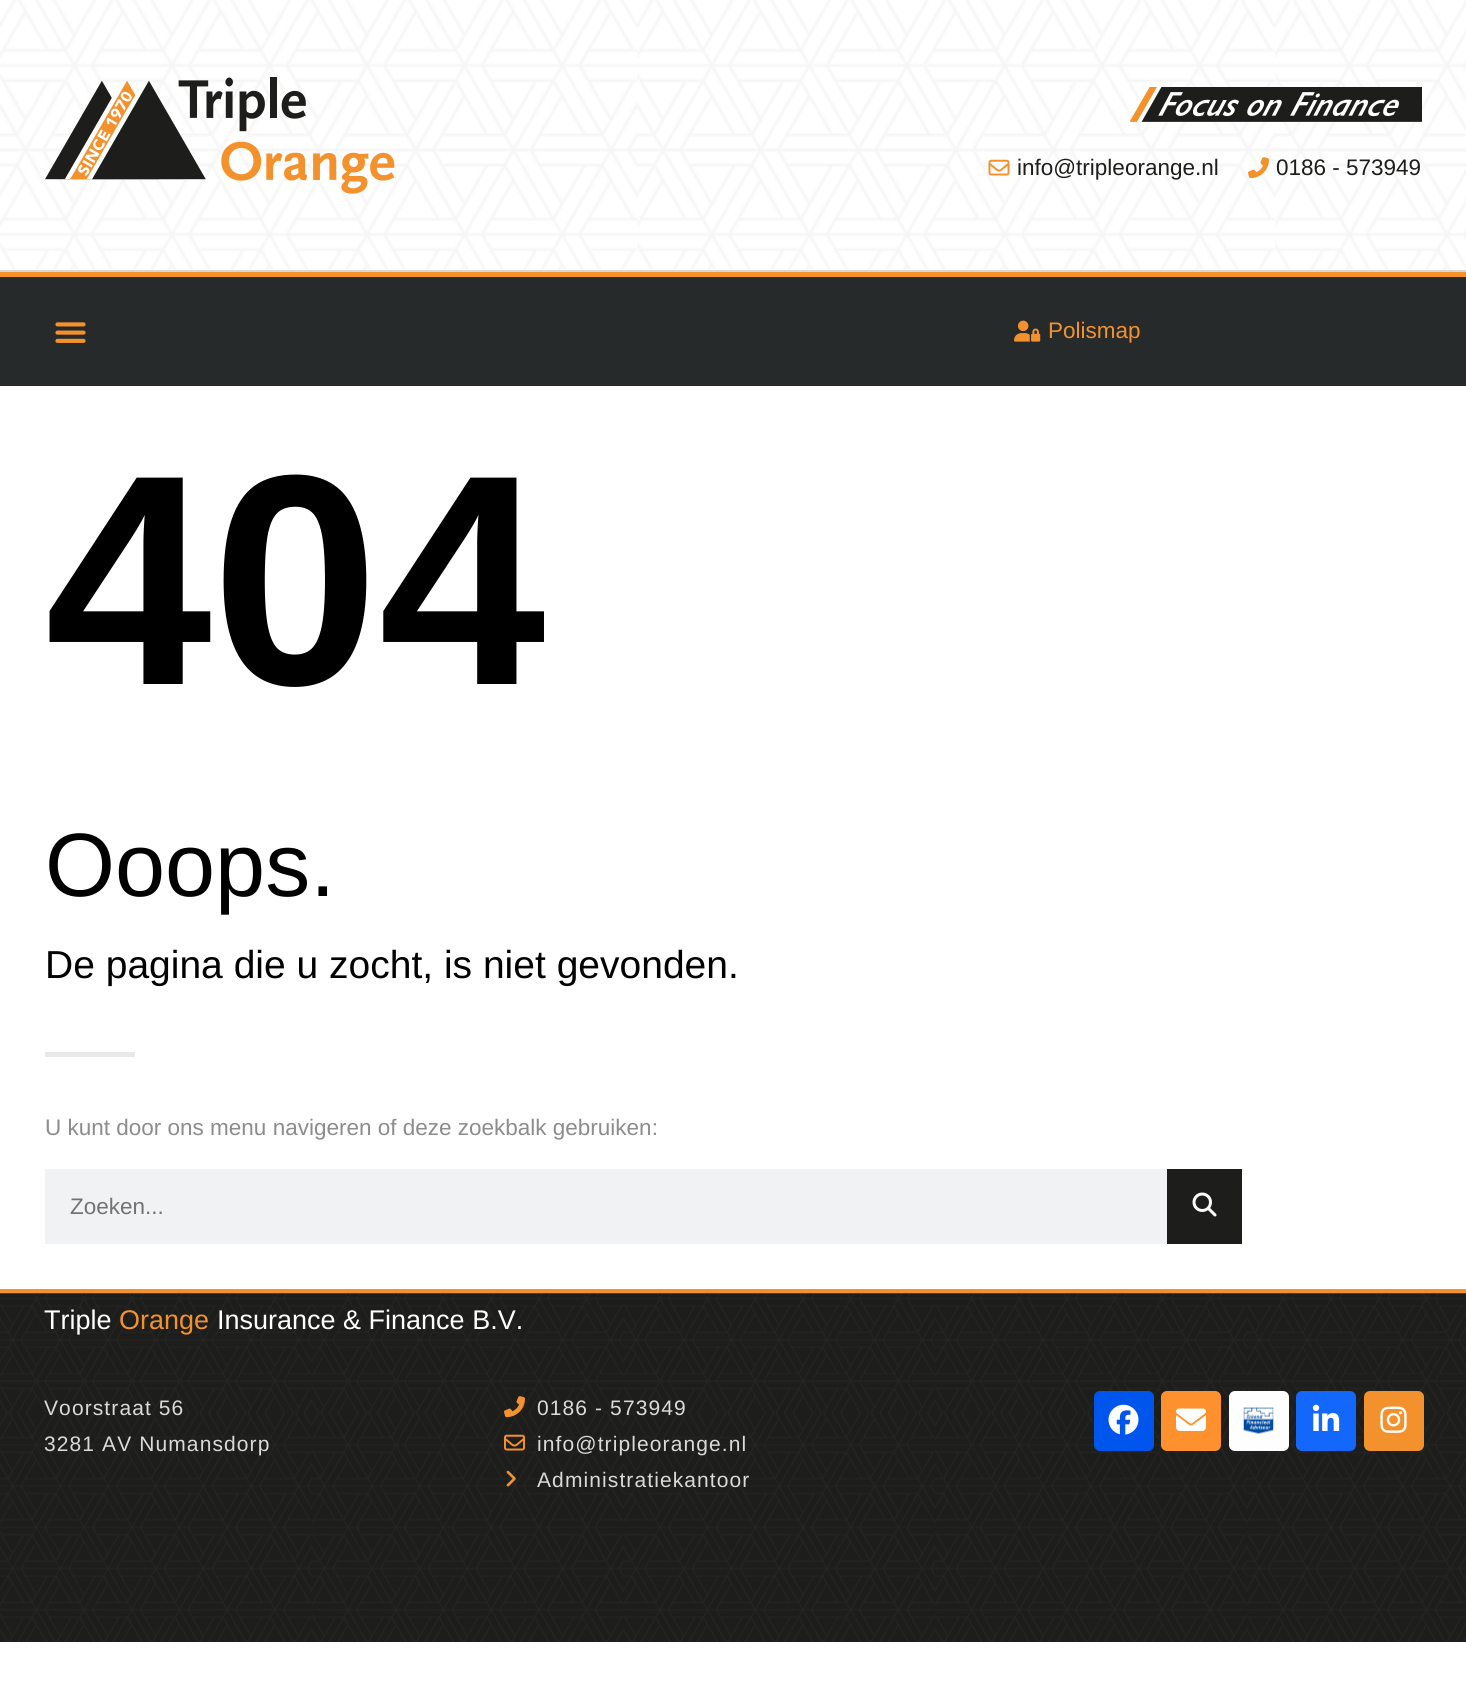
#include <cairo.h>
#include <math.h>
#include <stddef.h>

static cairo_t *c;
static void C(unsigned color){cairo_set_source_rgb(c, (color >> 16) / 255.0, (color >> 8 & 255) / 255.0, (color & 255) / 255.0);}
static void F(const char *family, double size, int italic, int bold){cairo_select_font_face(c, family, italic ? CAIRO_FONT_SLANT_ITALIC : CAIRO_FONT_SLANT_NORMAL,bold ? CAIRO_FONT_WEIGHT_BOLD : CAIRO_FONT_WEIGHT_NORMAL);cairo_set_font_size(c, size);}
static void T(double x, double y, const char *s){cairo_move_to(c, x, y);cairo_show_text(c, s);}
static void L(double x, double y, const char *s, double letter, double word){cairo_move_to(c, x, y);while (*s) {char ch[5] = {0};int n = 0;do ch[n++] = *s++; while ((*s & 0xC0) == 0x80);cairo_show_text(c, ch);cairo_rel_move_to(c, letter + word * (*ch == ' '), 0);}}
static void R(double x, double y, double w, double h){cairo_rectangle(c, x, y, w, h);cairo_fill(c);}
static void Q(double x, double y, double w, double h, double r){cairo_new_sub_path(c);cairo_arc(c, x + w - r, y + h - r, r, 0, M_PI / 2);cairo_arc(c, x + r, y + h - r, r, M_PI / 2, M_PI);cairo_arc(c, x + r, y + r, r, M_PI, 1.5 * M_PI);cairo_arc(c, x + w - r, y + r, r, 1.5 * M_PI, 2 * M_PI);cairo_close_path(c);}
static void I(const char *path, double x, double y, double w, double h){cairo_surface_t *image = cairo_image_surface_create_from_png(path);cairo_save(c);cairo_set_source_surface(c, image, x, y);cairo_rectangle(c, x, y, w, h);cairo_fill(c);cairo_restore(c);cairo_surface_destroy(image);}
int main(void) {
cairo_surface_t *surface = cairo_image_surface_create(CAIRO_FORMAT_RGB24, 1466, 1690);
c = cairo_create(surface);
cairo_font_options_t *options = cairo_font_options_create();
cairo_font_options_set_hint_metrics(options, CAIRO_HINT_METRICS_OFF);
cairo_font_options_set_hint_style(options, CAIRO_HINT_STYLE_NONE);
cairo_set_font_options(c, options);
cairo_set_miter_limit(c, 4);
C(0xffffff);
cairo_paint(c);
C(0xd8d8d8);
R(0,270,1466,2);
I("1.png",0,0,1466,270);
I("2.png",45,77,350,117);
I("3.png",1130,87,292,35);
I("4.png",988,159,22,17);
F("Liberation Sans",22.5,0,0);
C(0x1d1d1b);
T(1017,175,"info@tripleorange.nl");
I("5.png",1248,157,21,22);
T(1276,175,"0186 - 573949");
C(0x262a2b);
R(0,277,1466,109);
C(0xf3912d);
R(0,272,1466,5);
I("6.png",55,322,31,21);
I("7.png",1014,320,27,22);
T(1048,338,"Polismap");
F("Liberation Sans",300,0,1);
C(0x000000);
T(45,684,"404");
F("Liberation Sans",90,0,0);
T(45,896,"Ooops.");
F("Liberation Sans",39,0,0);
T(45,978,"De pagina die u zocht, is niet gevonden.");
C(0xe8e8e8);
R(45,1052,90,5);
F("Liberation Sans",22.5,0,0);
C(0x8c8c8c);
T(45,1135,"U kunt door ons menu navigeren of deze zoekbalk gebruiken:");
C(0xf1f2f3);
R(45,1169,1122,75);
C(0x727271);
T(70,1214,"Zoeken...");
C(0x1d1d1b);
R(1167,1169,75,75);
I("8.png",1192,1192,25,25);
C(0xf3912d);
R(0,1289,1466,5);
I("9.png",0,1293,1466,349);
F("Liberation Sans",27,0,0);
C(0xffffff);
T(44,1329,"Triple");
C(0xf3912d);
T(119,1329,"Orange");
C(0xffffff);
T(217,1329,"Insurance & Finance B.V.");
F("Liberation Sans",21,0,0);
C(0xdadada);
L(44,1415,"Voorstraat 56",1.1,0);
L(44,1451,"3281 AV Numansdorp",1.1,0);
I("10.png",504,1396,21,22);
L(537,1415,"0186 - 573949",1.1,0);
I("11.png",504,1434,21,17);
L(537,1451,"info@tripleorange.nl",1.1,0);
I("12.png",506,1470,10,17);
L(537,1487,"Administratiekantoor",1.1,0);
C(0x0055ec);
Q(1094,1391,60,60,6);
cairo_fill(c);
I("13.png",1108,1404,31,31);
C(0xfe912d);
Q(1161,1391,60,60,6);
cairo_fill(c);
I("14.png",1176,1408,30,23);
C(0xfefefe);
Q(1229,1391,60,60,6);
cairo_fill(c);
I("15.png",1243,1407,31,27);
C(0x1367fb);
Q(1296,1391,60,60,6);
cairo_fill(c);
I("16.png",1312,1404,28,27);
C(0xf3912d);
Q(1364,1391,60,60,6);
cairo_fill(c);
I("17.png",1380,1406,27,27);
cairo_surface_write_to_png(surface, "o.png");
cairo_font_options_destroy(options);
cairo_destroy(c);
cairo_surface_destroy(surface);
return 0;
}
